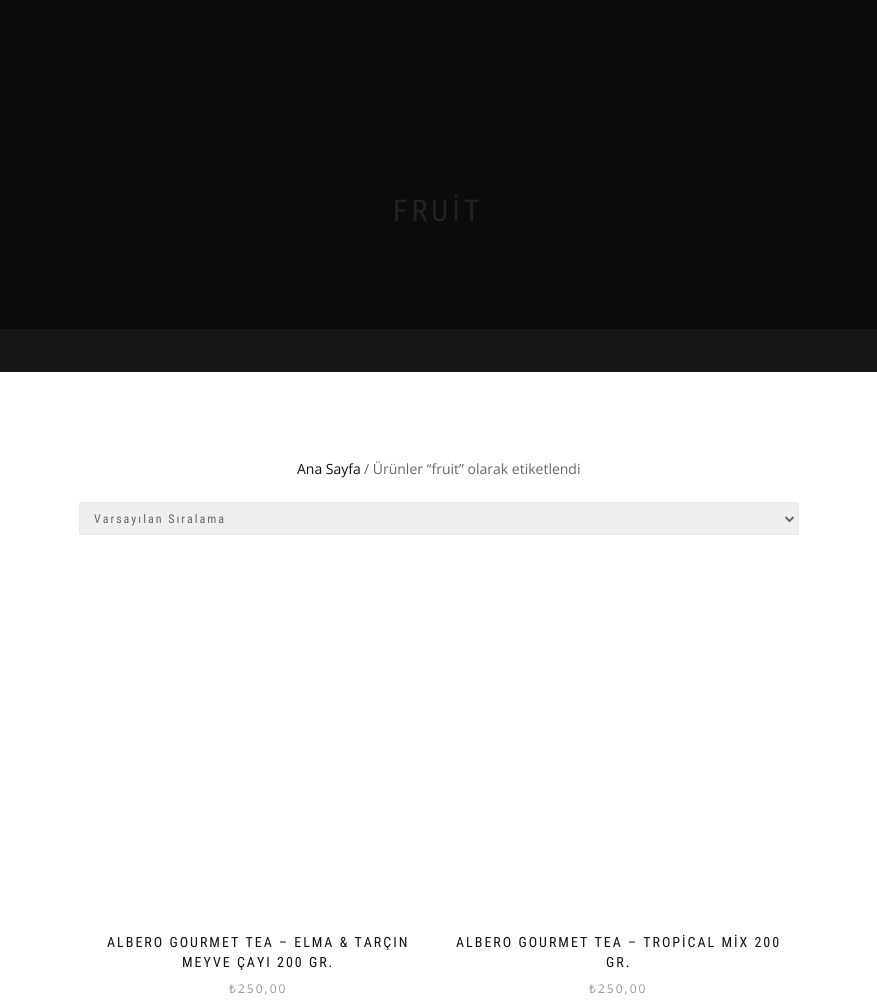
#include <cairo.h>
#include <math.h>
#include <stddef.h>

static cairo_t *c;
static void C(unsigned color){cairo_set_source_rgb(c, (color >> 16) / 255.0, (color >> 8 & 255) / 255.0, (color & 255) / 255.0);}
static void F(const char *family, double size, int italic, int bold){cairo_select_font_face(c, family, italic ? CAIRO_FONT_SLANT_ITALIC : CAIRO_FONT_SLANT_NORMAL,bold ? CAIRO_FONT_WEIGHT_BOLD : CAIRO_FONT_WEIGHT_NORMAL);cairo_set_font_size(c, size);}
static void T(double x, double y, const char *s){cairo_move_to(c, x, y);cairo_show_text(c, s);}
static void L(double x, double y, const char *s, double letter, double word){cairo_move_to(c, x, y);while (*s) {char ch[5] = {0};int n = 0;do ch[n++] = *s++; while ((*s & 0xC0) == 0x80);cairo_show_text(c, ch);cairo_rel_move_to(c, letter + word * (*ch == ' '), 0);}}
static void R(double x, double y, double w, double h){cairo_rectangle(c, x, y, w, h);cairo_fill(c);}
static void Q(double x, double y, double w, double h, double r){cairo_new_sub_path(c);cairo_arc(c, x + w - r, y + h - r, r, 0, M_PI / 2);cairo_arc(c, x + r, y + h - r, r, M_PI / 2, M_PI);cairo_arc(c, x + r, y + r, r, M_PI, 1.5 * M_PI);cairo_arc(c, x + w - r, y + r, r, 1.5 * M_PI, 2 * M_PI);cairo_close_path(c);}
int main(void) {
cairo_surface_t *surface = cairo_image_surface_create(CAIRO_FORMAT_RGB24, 877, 1005);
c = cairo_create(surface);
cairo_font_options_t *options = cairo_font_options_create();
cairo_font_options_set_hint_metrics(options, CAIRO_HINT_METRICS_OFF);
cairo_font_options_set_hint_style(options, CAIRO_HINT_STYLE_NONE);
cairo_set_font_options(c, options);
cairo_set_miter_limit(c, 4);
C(0xffffff);
cairo_paint(c);
C(0x161616);
R(0,329,877,43);
C(0x0b0b0b);
R(0,0,877,329);
F("Roboto Condensed",30,0,0);
C(0x222222);
L(393,221,"FRUİT",4,0);
F("Open Sans",14,0,0);
C(0x111111);
T(297,474,"Ana Sayfa");
C(0x666666);
T(364,474,"/ Ürünler “fruit” olarak etiketlendi");
C(0xefefef);
Q(79.5,502.5,719,32,1.5);
cairo_fill_preserve(c);
C(0xeaeaea);
cairo_set_line_width(c,1);
cairo_stroke(c);
cairo_new_path(c);
cairo_move_to(c,785.5,517);
cairo_line_to(c,789.5,521);
cairo_line_to(c,793.5,517);
C(0x666666);
cairo_set_line_width(c,2);
cairo_stroke(c);
F("Roboto Condensed",12,0,0);
L(94,523,"Varsayılan Sıralama",2,0);
F("Roboto Condensed",14,0,0);
C(0x111111);
L(107,947,"ALBERO GOURMET TEA – ELMA & TARÇIN",2,0);
L(182,967,"MEYVE ÇAYI 200 GR.",2,0);
F("Noto Sans",12,0,0);
C(0x999999);
L(229,993,"₺",2,0);
F("Open Sans",12,0,0);
L(238,993,"250,00",2,0);
F("Roboto Condensed",14,0,0);
C(0x111111);
L(456,947,"ALBERO GOURMET TEA – TROPİCAL MİX 200",2,0);
L(606,967,"GR.",2,0);
F("Noto Sans",12,0,0);
C(0x999999);
L(589,993,"₺",2,0);
F("Open Sans",12,0,0);
L(598,993,"250,00",2,0);
cairo_surface_write_to_png(surface, "o.png");
cairo_font_options_destroy(options);
cairo_destroy(c);
cairo_surface_destroy(surface);
return 0;
}
